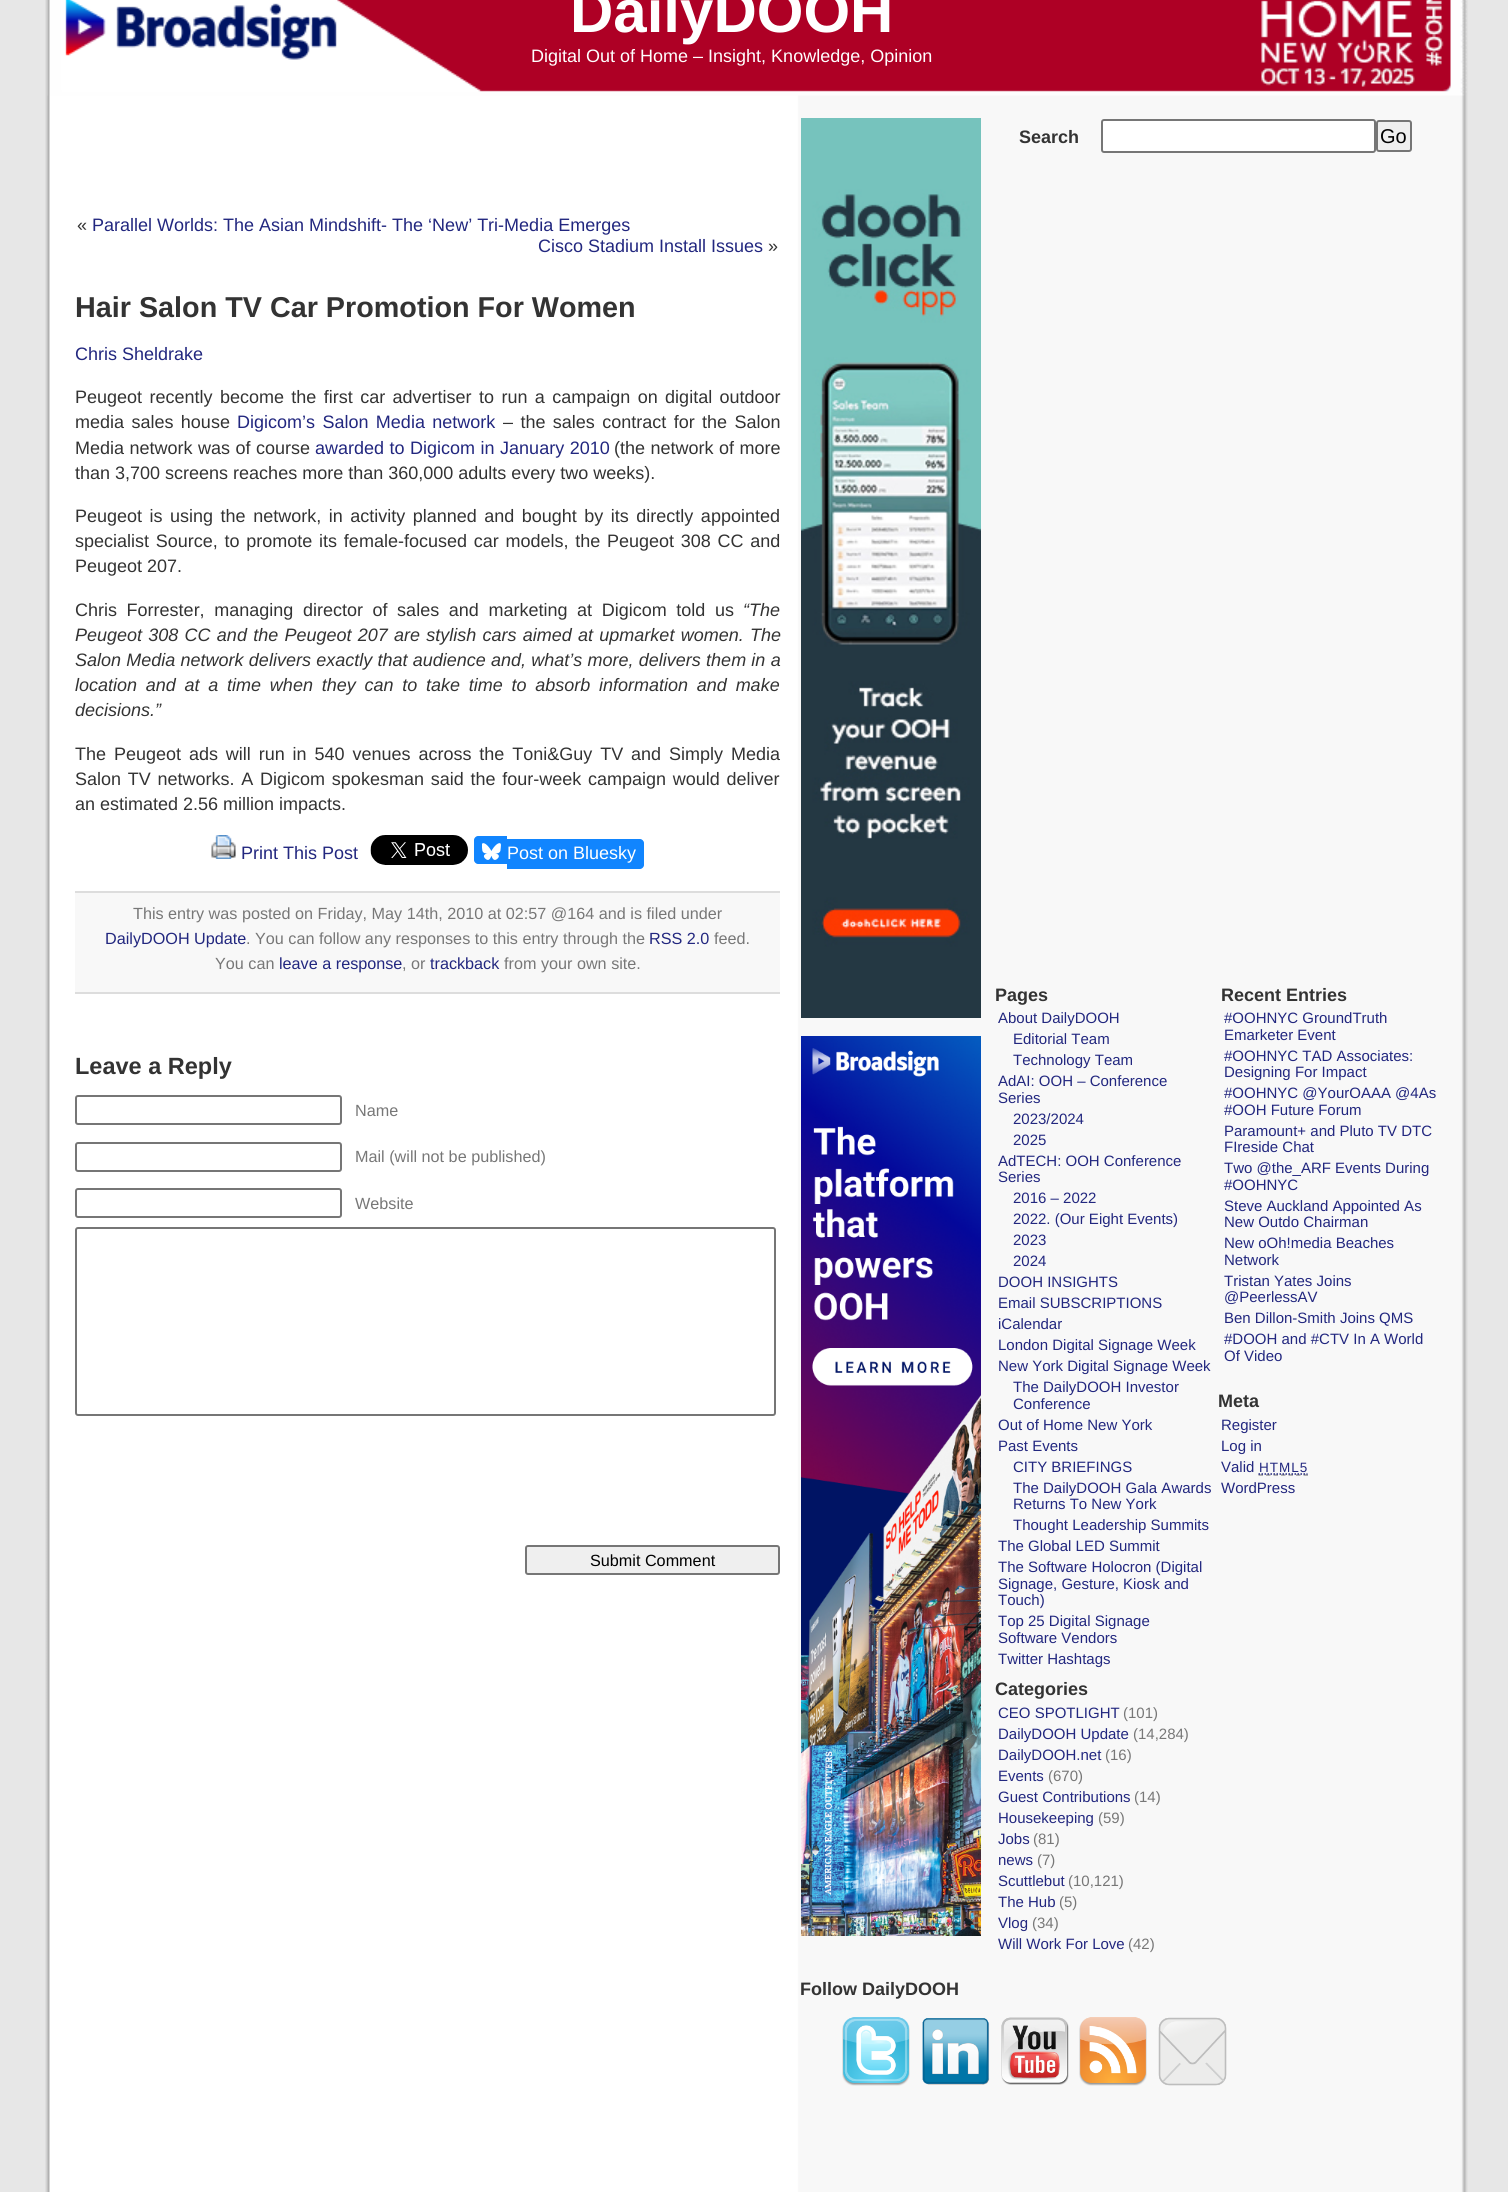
#include <cairo.h>
#include <math.h>
#include <stddef.h>

static cairo_t *c;
static void C(unsigned color){cairo_set_source_rgb(c, (color >> 16) / 255.0, (color >> 8 & 255) / 255.0, (color & 255) / 255.0);}
static void F(const char *family, double size, int italic, int bold){cairo_select_font_face(c, family, italic ? CAIRO_FONT_SLANT_ITALIC : CAIRO_FONT_SLANT_NORMAL,bold ? CAIRO_FONT_WEIGHT_BOLD : CAIRO_FONT_WEIGHT_NORMAL);cairo_set_font_size(c, size);}
static void T(double x, double y, const char *s){cairo_move_to(c, x, y);cairo_show_text(c, s);}
static void L(double x, double y, const char *s, double letter, double word){cairo_move_to(c, x, y);while (*s) {char ch[5] = {0};int n = 0;do ch[n++] = *s++; while ((*s & 0xC0) == 0x80);cairo_show_text(c, ch);cairo_rel_move_to(c, letter + word * (*ch == ' '), 0);}}
static void R(double x, double y, double w, double h){cairo_rectangle(c, x, y, w, h);cairo_fill(c);}
static void Q(double x, double y, double w, double h, double r){cairo_new_sub_path(c);cairo_arc(c, x + w - r, y + h - r, r, 0, M_PI / 2);cairo_arc(c, x + r, y + h - r, r, M_PI / 2, M_PI);cairo_arc(c, x + r, y + r, r, M_PI, 1.5 * M_PI);cairo_arc(c, x + w - r, y + r, r, 1.5 * M_PI, 2 * M_PI);cairo_close_path(c);}
static void I(const char *path, double x, double y, double w, double h){cairo_surface_t *image = cairo_image_surface_create_from_png(path);cairo_save(c);cairo_set_source_surface(c, image, x, y);cairo_rectangle(c, x, y, w, h);cairo_fill(c);cairo_restore(c);cairo_surface_destroy(image);}
int main(void) {
cairo_surface_t *surface = cairo_image_surface_create(CAIRO_FORMAT_RGB24, 1508, 2192);
c = cairo_create(surface);
cairo_font_options_t *options = cairo_font_options_create();
cairo_font_options_set_hint_metrics(options, CAIRO_HINT_METRICS_OFF);
cairo_font_options_set_hint_style(options, CAIRO_HINT_STYLE_NONE);
cairo_set_font_options(c, options);
cairo_set_miter_limit(c, 4);
C(0xe7e7e7);
cairo_paint(c);
I("1.png",45,0,1423,2192);
I("2.png",47,0,1420,96);
F("Liberation Sans",60,0,1);
C(0xffffff);
T(570,32,"DailyDOOH");
F("Liberation Sans",18,0,0);
T(531,62,"Digital Out of Home – Insight, Knowledge, Opinion");
C(0x333333);
T(77,231,"«");
C(0x22277f);
T(92,231,"Parallel Worlds: The Asian Mindshift- The ‘New’ Tri-Media Emerges");
T(538,252,"Cisco Stadium Install Issues");
C(0x333333);
T(768,252,"»");
F("Liberation Sans",28.75,0,1);
T(75,317,"Hair Salon TV Car Promotion For Women");
F("Liberation Sans",18,0,0);
C(0x22277f);
T(75,360,"Chris Sheldrake");
C(0x333333);
L(75,403,"Peugeot recently become the first car advertiser to run a campaign on digital outdoor",0,2.4);
L(75,428,"media sales house",0,2.4);
C(0x22277f);
L(237,428,"Digicom’s Salon Media network",0,2.4);
C(0x333333);
L(503,428,"– the sales contract for the Salon",0,2.4);
L(75,454,"Media network was of course",0,.5);
C(0x22277f);
L(315,454,"awarded to Digicom in January 2010",0,.5);
C(0x333333);
L(614,454,"(the network of more",0,.5);
T(75,479,"than 3,700 screens reaches more than 360,000 adults every two weeks).");
L(75,522,"Peugeot is using the network, in activity planned and bought by its directly appointed",0,2.5);
L(75,547,"specialist Source, to promote its female-focused car models, the Peugeot 308 CC and",0,1.75);
T(75,572,"Peugeot 207.");
L(75,616,"Chris Forrester, managing director of sales and marketing at Digicom told us",0,4.6);
F("Liberation Sans",18,1,0);
T(743,616,"“The");
L(75,641,"Peugeot 308 CC and the Peugeot 207 are stylish cars aimed at upmarket women. The",0,1.25);
L(75,666,"Salon Media network delivers exactly that audience and, what’s more, delivers them in a",0,.25);
L(75,691,"location and at a time when they can to take time to absorb information and make",0,3.75);
T(75,716,"decisions.”");
F("Liberation Sans",18,0,0);
L(75,760,"The Peugeot ads will run in 540 venues across the Toni&Guy TV and Simply Media",0,2.9);
L(75,785,"Salon TV networks. A Digicom spokesman said the four-week campaign would deliver",0,1.75);
T(75,810,"an estimated 2.56 million impacts.");
I("3.png",211,835,25,24);
C(0x22277f);
T(241,859,"Print This Post");
I("4.png",370,835,98,30);
C(0x1185fe);
cairo_new_path(c);
cairo_move_to(c,478,836);
cairo_line_to(c,507,836);
cairo_line_to(c,507,864);
cairo_line_to(c,478,864);
cairo_curve_to(c,476,864,474,862,474,860);
cairo_line_to(c,474,840);
cairo_curve_to(c,474,838,476,836,478,836);
cairo_close_path(c);
cairo_fill(c);
I("5.png",482,843,19,17);
cairo_new_path(c);
cairo_move_to(c,507,839);
cairo_line_to(c,640,839);
cairo_curve_to(c,642,839,644,841,644,843);
cairo_line_to(c,644,865);
cairo_curve_to(c,644,867,642,869,640,869);
cairo_line_to(c,507,869);
cairo_close_path(c);
cairo_fill(c);
C(0xffffff);
T(507,859,"Post on Bluesky");
C(0xf8f8f8);
R(75,893,705,99);
C(0xdddddd);
R(75,891,705,2);
R(75,992,705,2);
F("Liberation Sans",16.2,0,0);
C(0x777777);
T(133,919,"This entry was posted on Friday, May 14th, 2010 at 02:57 @164 and is filed under");
C(0x22277f);
T(105,944,"DailyDOOH Update");
C(0x777777);
T(246,944,". You can follow any responses to this entry through the");
C(0x22277f);
T(649,944,"RSS 2.0");
C(0x777777);
T(714,944,"feed.");
T(215,969,"You can");
C(0x22277f);
T(279,969,"leave a response");
C(0x777777);
T(402,969,", or");
C(0x22277f);
T(430,969,"trackback");
C(0x777777);
T(504,969,"from your own site.");
F("Liberation Sans",23.5,0,1);
C(0x333333);
T(75,1074,"Leave a Reply");
Q(76,1096,265,28,2);
C(0x767676);
cairo_stroke(c);
F("Liberation Sans",16.2,0,0);
C(0x777777);
T(355,1116,"Name");
Q(76,1143,265,28,2);
C(0x767676);
cairo_stroke(c);
C(0x777777);
T(355,1162,"Mail (will not be published)");
Q(76,1189,265,28,2);
C(0x767676);
cairo_stroke(c);
C(0x777777);
T(355,1209,"Website");
Q(76,1228,699,187,2);
C(0x767676);
cairo_stroke(c);
C(0xefefef);
Q(526,1546,253,28,2);
cairo_fill_preserve(c);
C(0x767676);
cairo_stroke(c);
C(0x000000);
T(590,1566,"Submit Comment");
I("6.png",801,118,180,900);
I("7.png",801,1036,180,900);
F("Liberation Sans",18,0,1);
C(0x333333);
T(1019,143,"Search");
C(0xffffff);
Q(1102,120,273,32,2);
cairo_fill_preserve(c);
C(0x767676);
cairo_stroke(c);
C(0xefefef);
Q(1377,121,34,30,2);
cairo_fill_preserve(c);
C(0x767676);
cairo_stroke(c);
F("Liberation Sans",20,0,0);
C(0x000000);
T(1380,143,"Go");
F("Liberation Sans",18,0,1);
C(0x333333);
T(995,1001,"Pages");
F("Liberation Sans",15,0,0);
C(0x22277f);
T(998,1023,"About DailyDOOH");
T(1013,1044,"Editorial Team");
T(1013,1065,"Technology Team");
T(998,1086,"AdAI: OOH – Conference");
T(998,1103,"Series");
T(1013,1124,"2023/2024");
T(1013,1145,"2025");
T(998,1166,"AdTECH: OOH Conference");
T(998,1182,"Series");
T(1013,1203,"2016 – 2022");
T(1013,1224,"2022. (Our Eight Events)");
T(1013,1245,"2023");
T(1013,1266,"2024");
T(998,1287,"DOOH INSIGHTS");
T(998,1308,"Email SUBSCRIPTIONS");
T(998,1329,"iCalendar");
T(998,1350,"London Digital Signage Week");
T(998,1371,"New York Digital Signage Week");
T(1013,1392,"The DailyDOOH Investor");
T(1013,1409,"Conference");
T(998,1430,"Out of Home New York");
T(998,1451,"Past Events");
T(1013,1472,"CITY BRIEFINGS");
T(1013,1493,"The DailyDOOH Gala Awards");
T(1013,1509,"Returns To New York");
T(1013,1530,"Thought Leadership Summits");
T(998,1551,"The Global LED Summit");
T(998,1572,"The Software Holocron (Digital");
T(998,1589,"Signage, Gesture, Kiosk and");
T(998,1605,"Touch)");
T(998,1626,"Top 25 Digital Signage");
T(998,1643,"Software Vendors");
T(998,1664,"Twitter Hashtags");
F("Liberation Sans",18,0,1);
C(0x333333);
T(995,1695,"Categories");
F("Liberation Sans",15,0,0);
C(0x22277f);
T(998,1718,"CEO SPOTLIGHT");
C(0x777777);
T(1123,1718,"(101)");
C(0x22277f);
T(998,1739,"DailyDOOH Update");
C(0x777777);
T(1133,1739,"(14,284)");
C(0x22277f);
T(998,1760,"DailyDOOH.net");
C(0x777777);
T(1105,1760,"(16)");
C(0x22277f);
T(998,1781,"Events");
C(0x777777);
T(1048,1781,"(670)");
C(0x22277f);
T(998,1802,"Guest Contributions");
C(0x777777);
T(1134,1802,"(14)");
C(0x22277f);
T(998,1823,"Housekeeping");
C(0x777777);
T(1098,1823,"(59)");
C(0x22277f);
T(998,1844,"Jobs");
C(0x777777);
T(1033,1844,"(81)");
C(0x22277f);
T(998,1865,"news");
C(0x777777);
T(1037,1865,"(7)");
C(0x22277f);
T(998,1886,"Scuttlebut");
C(0x777777);
T(1068,1886,"(10,121)");
C(0x22277f);
T(998,1907,"The Hub");
C(0x777777);
T(1059,1907,"(5)");
C(0x22277f);
T(998,1928,"Vlog");
C(0x777777);
T(1032,1928,"(34)");
C(0x22277f);
T(998,1949,"Will Work For Love");
C(0x777777);
T(1128,1949,"(42)");
F("Liberation Sans",18,0,1);
C(0x333333);
T(1221,1001,"Recent Entries");
F("Liberation Sans",15,0,0);
C(0x22277f);
T(1224,1023,"#OOHNYC GroundTruth");
T(1224,1040,"Emarketer Event");
T(1224,1061,"#OOHNYC TAD Associates:");
T(1224,1077,"Designing For Impact");
T(1224,1098,"#OOHNYC @YourOAAA @4As");
T(1224,1115,"#OOH Future Forum");
T(1224,1136,"Paramount+ and Pluto TV DTC");
T(1224,1152,"FIreside Chat");
T(1224,1173,"Two @the_ARF Events During");
T(1224,1190,"#OOHNYC");
T(1224,1211,"Steve Auckland Appointed As");
T(1224,1227,"New Outdo Chairman");
T(1224,1248,"New oOh!media Beaches");
T(1224,1265,"Network");
T(1224,1286,"Tristan Yates Joins");
T(1224,1302,"@PeerlessAV");
T(1224,1323,"Ben Dillon-Smith Joins QMS");
T(1224,1344,"#DOOH and #CTV In A World");
T(1224,1361,"Of Video");
F("Liberation Sans",18,0,1);
C(0x333333);
T(1218,1407,"Meta");
F("Liberation Sans",15,0,0);
C(0x22277f);
T(1221,1430,"Register");
T(1221,1451,"Log in");
T(1221,1472,"Valid");
F("Liberation Sans",13.5,0,0);
L(1259,1472,"HTML5",1,0);
cairo_new_path(c);
cairo_move_to(c,1258.5,1475);
cairo_line_to(c,1308,1475);
C(0x999999);
cairo_set_line_width(c,1.5);
cairo_set_dash(c,(double[]){4.5,3},2,0);
cairo_stroke(c);
cairo_new_path(c);
cairo_move_to(c,1258.5,1474);
cairo_line_to(c,1307.5,1474);
C(0x22277f);
cairo_set_dash(c,(double[]){1.5,1.5},2,0);
cairo_stroke(c);
F("Liberation Sans",15,0,0);
T(1221,1493,"WordPress");
F("Liberation Sans",18,0,1);
C(0x333333);
T(800,1995,"Follow DailyDOOH");
I("8.png",842,2017,68,69);
I("9.png",922,2018,68,67);
I("10.png",1001,2017,68,68);
I("11.png",1079,2017,68,69);
I("12.png",1158,2017,69,69);
cairo_surface_write_to_png(surface, "o.png");
cairo_font_options_destroy(options);
cairo_destroy(c);
cairo_surface_destroy(surface);
return 0;
}
